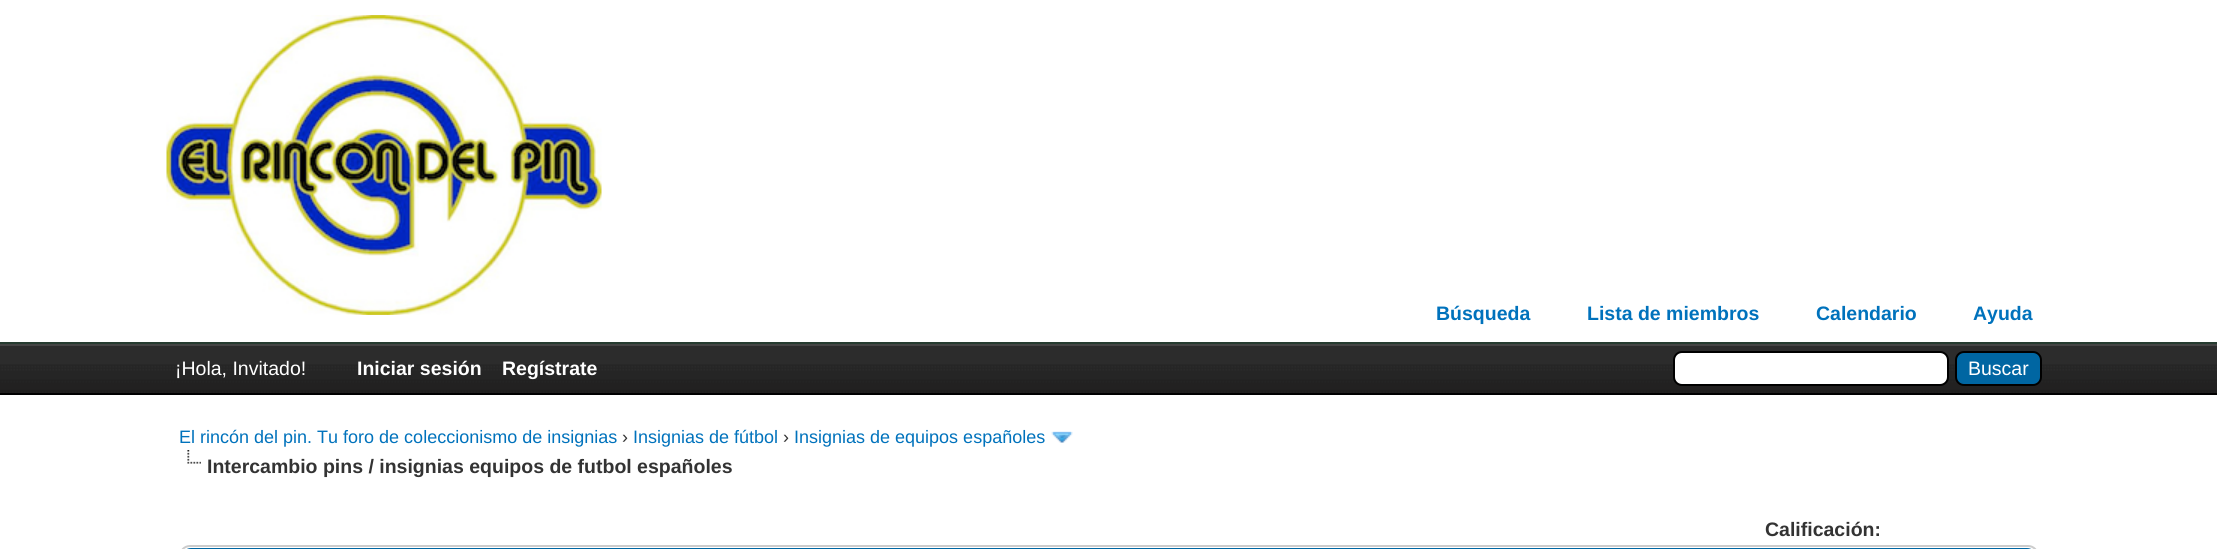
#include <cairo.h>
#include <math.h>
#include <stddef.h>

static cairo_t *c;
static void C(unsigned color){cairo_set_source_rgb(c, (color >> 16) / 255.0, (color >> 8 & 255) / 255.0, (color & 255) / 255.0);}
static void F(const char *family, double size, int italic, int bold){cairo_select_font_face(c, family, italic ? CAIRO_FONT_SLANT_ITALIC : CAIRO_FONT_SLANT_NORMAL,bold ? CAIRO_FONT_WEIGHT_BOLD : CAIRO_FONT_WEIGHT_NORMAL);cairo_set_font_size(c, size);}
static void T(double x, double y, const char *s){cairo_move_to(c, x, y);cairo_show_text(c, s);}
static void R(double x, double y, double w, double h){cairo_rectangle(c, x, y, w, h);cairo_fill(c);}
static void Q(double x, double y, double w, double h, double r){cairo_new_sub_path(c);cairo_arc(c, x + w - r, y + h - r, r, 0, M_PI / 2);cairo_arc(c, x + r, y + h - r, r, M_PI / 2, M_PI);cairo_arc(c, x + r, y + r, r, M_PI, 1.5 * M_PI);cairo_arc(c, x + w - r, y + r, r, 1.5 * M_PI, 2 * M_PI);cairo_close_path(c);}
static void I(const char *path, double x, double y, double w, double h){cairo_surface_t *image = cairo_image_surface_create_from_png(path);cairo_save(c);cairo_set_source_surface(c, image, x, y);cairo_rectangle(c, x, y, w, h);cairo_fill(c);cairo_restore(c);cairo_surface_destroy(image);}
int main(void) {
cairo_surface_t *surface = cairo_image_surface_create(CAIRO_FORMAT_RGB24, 2217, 549);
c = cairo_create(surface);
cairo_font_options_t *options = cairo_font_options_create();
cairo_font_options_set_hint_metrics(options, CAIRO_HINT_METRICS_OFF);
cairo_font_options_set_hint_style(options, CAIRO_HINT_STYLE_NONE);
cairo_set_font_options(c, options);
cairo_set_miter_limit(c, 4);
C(0xffffff);
cairo_paint(c);
C(0x263c30);
R(0,342,2217,2);
I("1.png",166,15,436,300);
F("Liberation Sans",19.5,0,1);
C(0x0072bc);
T(1436,320,"Búsqueda");
T(1587,320,"Lista de miembros");
T(1816,320,"Calendario");
T(1973,320,"Ayuda");
I("2.png",0,346,2217,47);
C(0x444444);
R(0,344,2217,2);
C(0x000000);
R(0,393,2217,2);
F("Liberation Sans",19.5,0,0);
C(0xffffff);
T(175,375,"¡Hola, Invitado!");
F("Liberation Sans",19.5,0,1);
T(357,375,"Iniciar sesión");
T(502,375,"Regístrate");
Q(1674,352,274,33,8);
cairo_fill_preserve(c);
C(0x000000);
cairo_stroke(c);
C(0x0066a2);
Q(1956,352,85,33,8);
cairo_fill_preserve(c);
C(0x000000);
cairo_stroke(c);
F("Liberation Sans",19.5,0,0);
C(0xffffff);
T(1968,375,"Buscar");
F("Liberation Sans",18,0,0);
C(0x0072bc);
T(179,443,"El rincón del pin. Tu foro de coleccionismo de insignias");
C(0x333333);
T(622,443,"›");
C(0x0072bc);
T(633,443,"Insignias de fútbol");
C(0x333333);
T(783,443,"›");
C(0x0072bc);
T(794,443,"Insignias de equipos españoles");
I("3.png",1051,431,22,12);
I("4.png",187,450,14,14);
F("Liberation Sans",19.5,0,1);
C(0x333333);
T(207,473,"Intercambio pins / insignias equipos de futbol españoles");
T(1765,536,"Calificación:");
Q(180,546,1858,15,10);
C(0xcccccc);
cairo_stroke(c);
C(0x0066a2);
cairo_new_path(c);
cairo_move_to(c,191,548);
cairo_line_to(c,2027,548);
cairo_curve_to(c,2032,548,2036,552,2036,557);
cairo_line_to(c,2036,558);
cairo_line_to(c,182,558);
cairo_line_to(c,182,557);
cairo_curve_to(c,182,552,186,548,191,548);
cairo_close_path(c);
cairo_fill(c);
cairo_surface_write_to_png(surface, "o.png");
cairo_font_options_destroy(options);
cairo_destroy(c);
cairo_surface_destroy(surface);
return 0;
}
